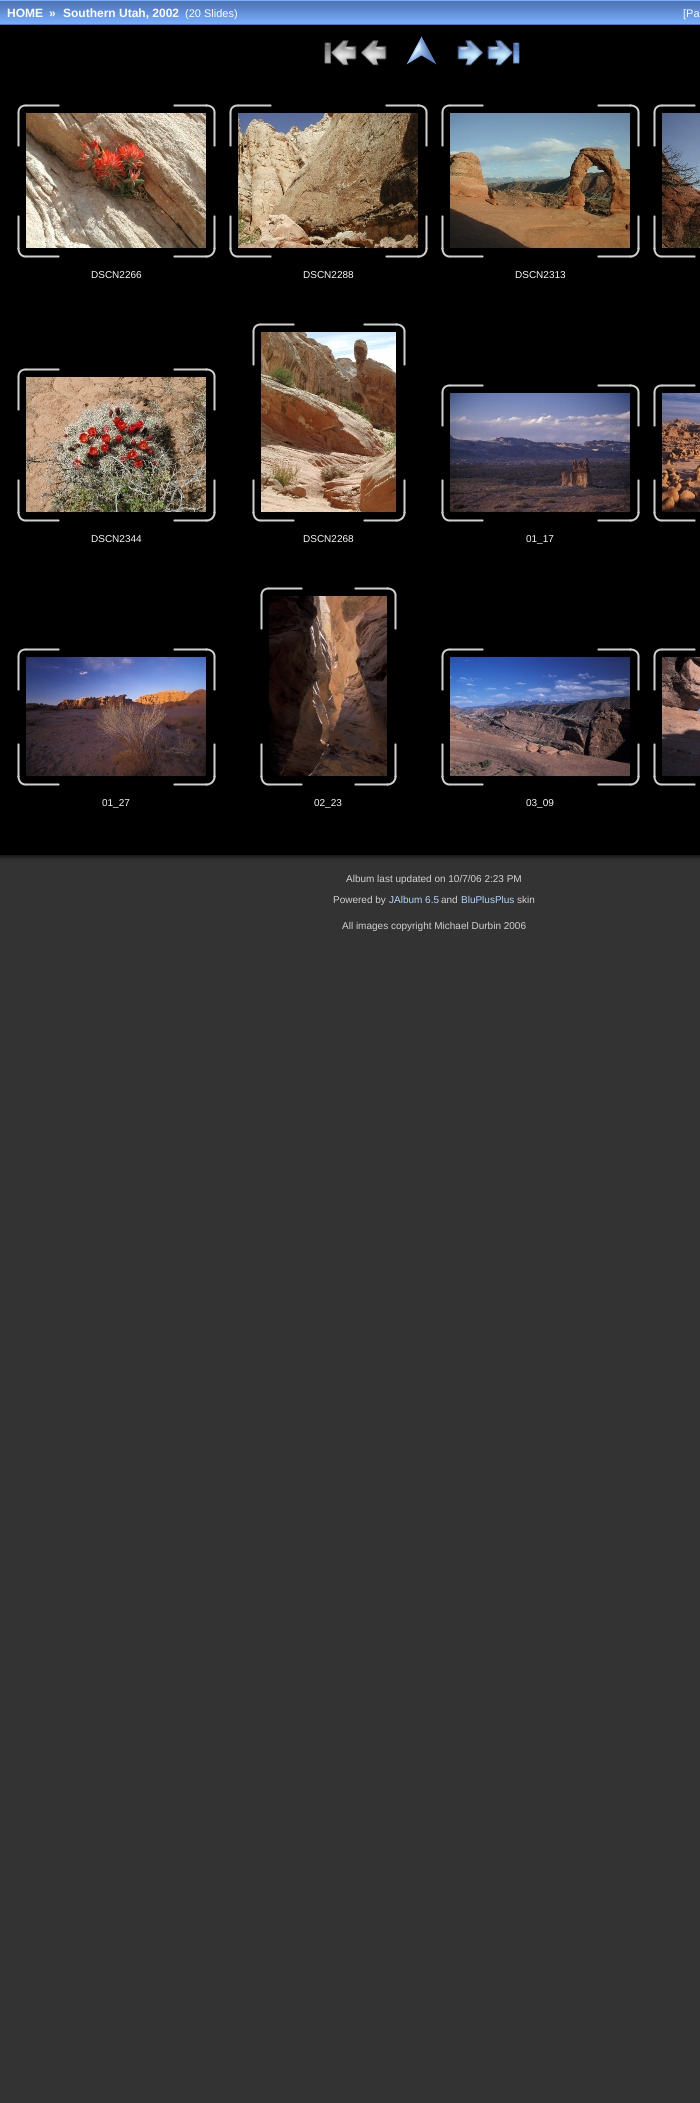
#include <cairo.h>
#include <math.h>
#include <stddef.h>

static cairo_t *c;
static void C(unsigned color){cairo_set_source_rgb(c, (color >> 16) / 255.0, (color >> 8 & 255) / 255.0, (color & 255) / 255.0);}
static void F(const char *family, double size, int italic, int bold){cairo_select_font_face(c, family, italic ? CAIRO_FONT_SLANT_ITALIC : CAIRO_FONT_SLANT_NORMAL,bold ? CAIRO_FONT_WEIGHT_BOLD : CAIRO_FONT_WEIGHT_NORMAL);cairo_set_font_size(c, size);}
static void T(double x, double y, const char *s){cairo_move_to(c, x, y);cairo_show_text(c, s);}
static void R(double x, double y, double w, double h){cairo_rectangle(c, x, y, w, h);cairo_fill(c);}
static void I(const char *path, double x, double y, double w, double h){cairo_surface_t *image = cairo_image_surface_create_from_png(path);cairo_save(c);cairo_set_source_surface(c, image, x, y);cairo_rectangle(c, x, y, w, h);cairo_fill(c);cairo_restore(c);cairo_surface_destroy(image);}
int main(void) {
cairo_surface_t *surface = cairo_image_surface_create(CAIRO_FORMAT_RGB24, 700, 2103);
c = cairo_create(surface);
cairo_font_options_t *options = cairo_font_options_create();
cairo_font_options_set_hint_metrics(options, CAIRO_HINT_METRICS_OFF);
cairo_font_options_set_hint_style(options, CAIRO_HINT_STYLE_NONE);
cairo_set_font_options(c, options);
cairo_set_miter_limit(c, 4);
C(0x333333);
cairo_paint(c);
I("1.png",0,0,700,25);
F("Liberation Sans",12,0,1);
C(0xfafafa);
T(7,17,"HOME");
T(49,17,"»");
T(63,17,"Southern Utah, 2002");
F("Liberation Sans",11,0,0);
T(185,17,"(20 Slides)");
T(683,17,"[Pa");
C(0x000000);
R(0,25,700,830);
I("2.png",324,40,33,26);
I("3.png",361,40,26,26);
I("4.png",406,36,31,29);
I("5.png",457,40,26,26);
I("6.png",487,40,33,26);
I("7.png",17,104,199,154);
I("8.png",229,104,199,154);
I("9.png",441,104,199,154);
I("10.png",653,104,47,154);
F("Liberation Sans",10,0,0);
C(0xfafafa);
T(91,278,"DSCN2266");
T(303,278,"DSCN2288");
T(515,278,"DSCN2313");
I("11.png",17,368,199,154);
I("12.png",252,323,154,199);
I("13.png",441,384,199,138);
I("14.png",653,384,47,138);
T(91,542,"DSCN2344");
T(303,542,"DSCN2268");
T(526,542,"01_17");
I("15.png",17,648,199,138);
I("16.png",260,587,137,199);
I("17.png",441,648,199,138);
I("18.png",653,648,47,138);
T(102,806,"01_27");
T(314,806,"02_23");
T(526,806,"03_09");
C(0x191919);
R(0,855,700,1);
C(0x1f1f1f);
R(0,856,700,1);
C(0x262626);
R(0,857,700,1);
C(0x2b2b2b);
R(0,858,700,1);
C(0x2f2f2f);
R(0,859,700,1);
C(0xd0d0d0);
T(346,882,"Album last updated on 10/7/06 2:23 PM");
T(333,903,"Powered by");
C(0xb4d2f8);
T(389,903,"JAlbum 6.5");
C(0xd0d0d0);
T(441,903,"and");
C(0xb4d2f8);
T(461,903,"BluPlusPlus");
C(0xd0d0d0);
T(517,903,"skin");
T(342,929,"All images copyright Michael Durbin 2006");
cairo_surface_write_to_png(surface, "o.png");
cairo_font_options_destroy(options);
cairo_destroy(c);
cairo_surface_destroy(surface);
return 0;
}
